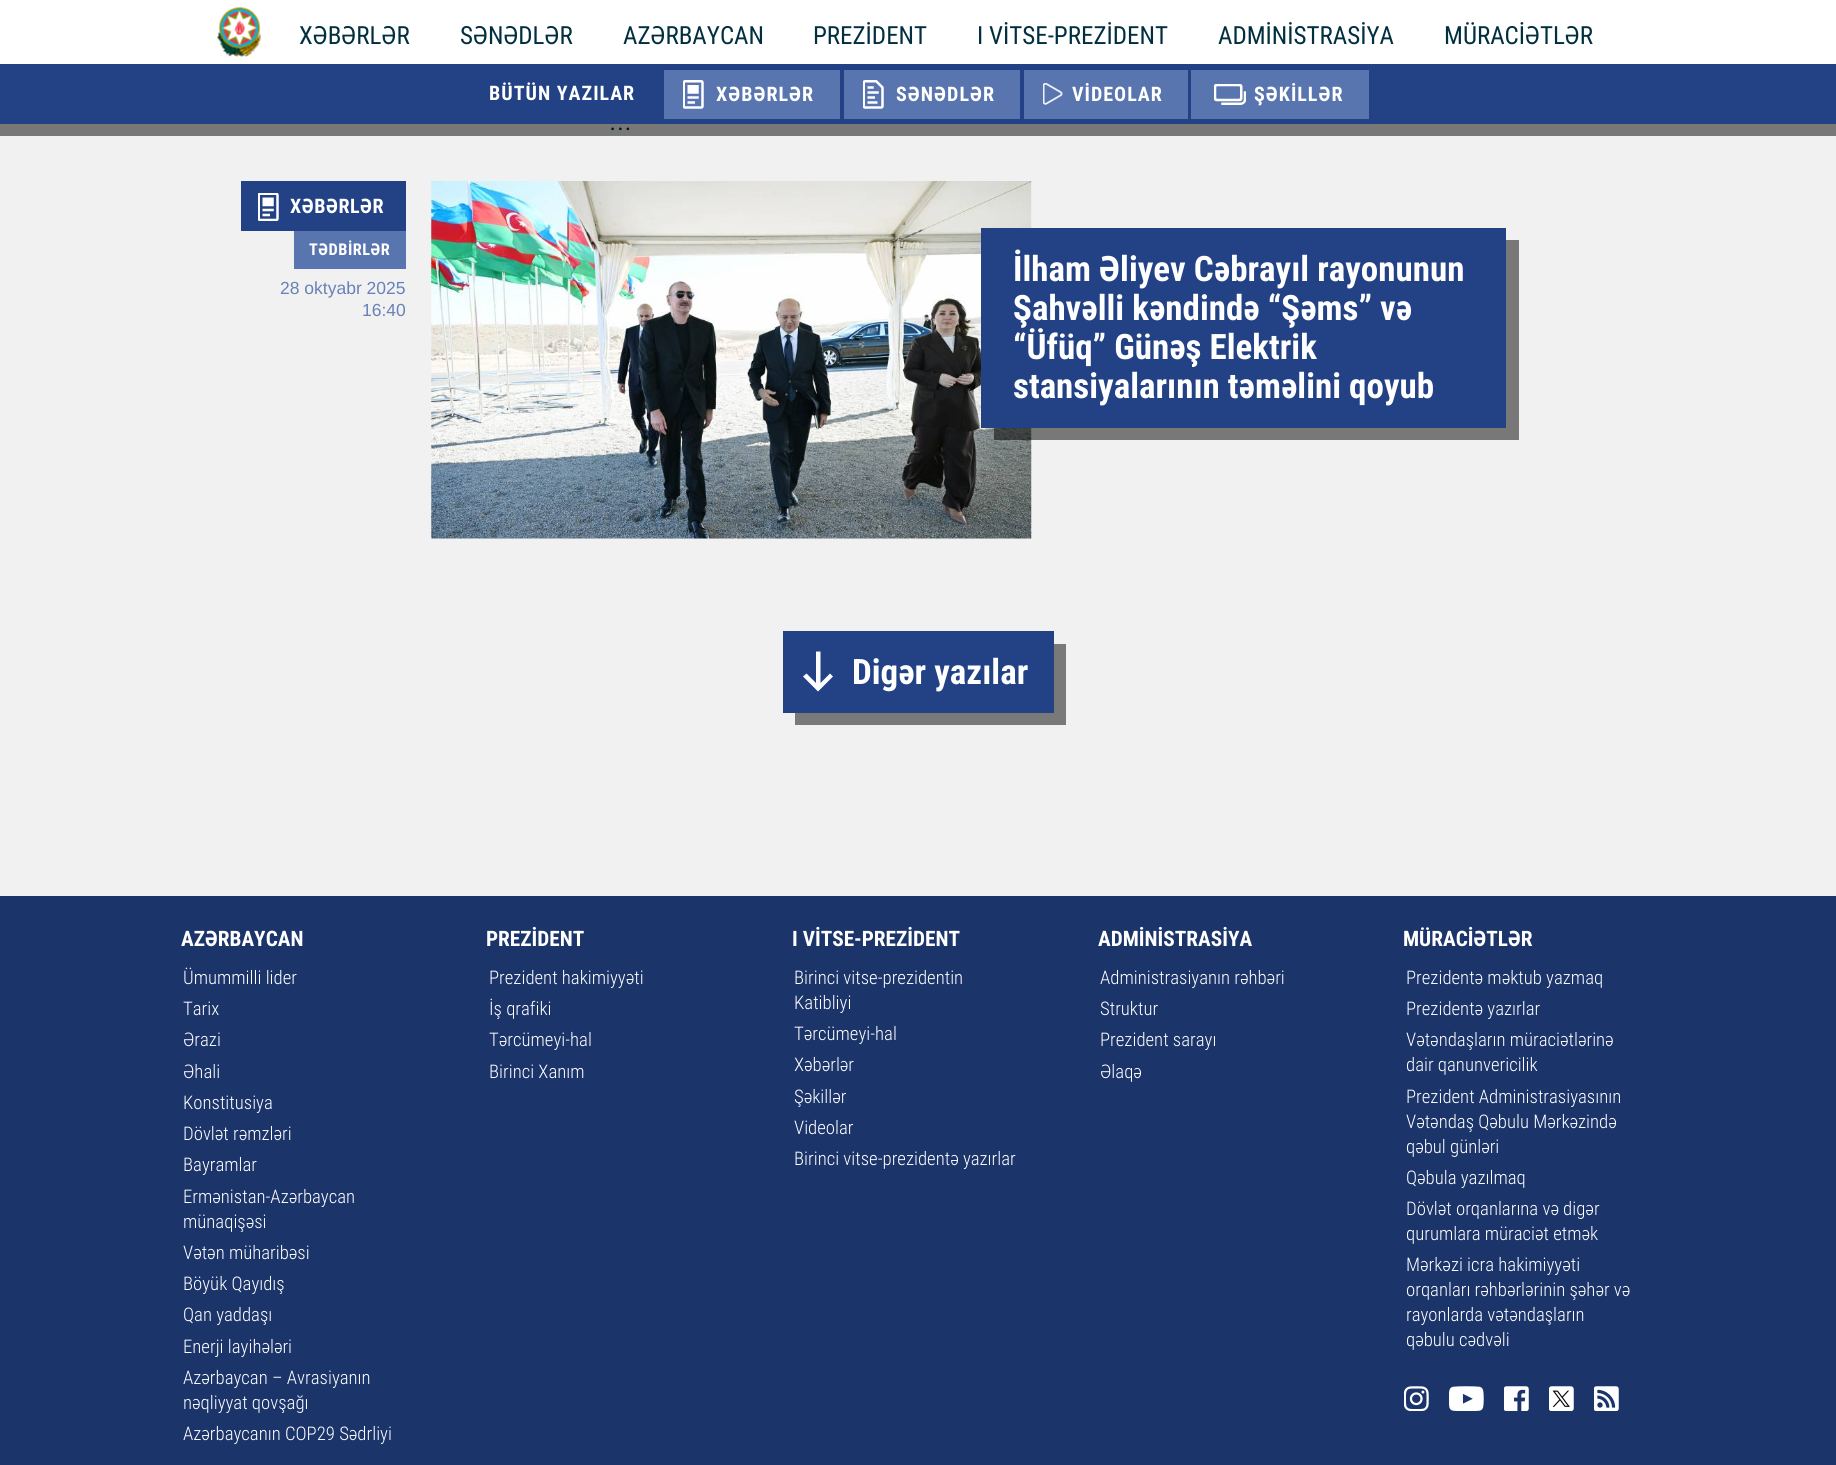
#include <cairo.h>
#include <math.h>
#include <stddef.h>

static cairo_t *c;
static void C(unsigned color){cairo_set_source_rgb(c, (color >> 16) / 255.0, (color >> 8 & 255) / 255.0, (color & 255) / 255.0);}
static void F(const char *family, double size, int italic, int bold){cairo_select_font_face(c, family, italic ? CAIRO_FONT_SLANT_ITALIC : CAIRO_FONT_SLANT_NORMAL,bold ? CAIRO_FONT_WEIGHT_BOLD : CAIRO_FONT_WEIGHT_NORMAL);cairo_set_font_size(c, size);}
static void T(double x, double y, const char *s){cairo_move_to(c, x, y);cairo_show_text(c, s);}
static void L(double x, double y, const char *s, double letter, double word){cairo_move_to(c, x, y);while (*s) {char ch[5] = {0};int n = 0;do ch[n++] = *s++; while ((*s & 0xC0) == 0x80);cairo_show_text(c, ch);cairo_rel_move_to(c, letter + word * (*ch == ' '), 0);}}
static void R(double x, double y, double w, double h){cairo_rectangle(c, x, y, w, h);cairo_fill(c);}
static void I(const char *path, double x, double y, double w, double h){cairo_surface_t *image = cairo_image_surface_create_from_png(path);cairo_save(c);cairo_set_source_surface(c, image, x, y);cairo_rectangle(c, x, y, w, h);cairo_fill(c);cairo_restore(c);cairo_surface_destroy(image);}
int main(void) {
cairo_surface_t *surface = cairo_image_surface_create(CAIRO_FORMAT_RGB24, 1836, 1465);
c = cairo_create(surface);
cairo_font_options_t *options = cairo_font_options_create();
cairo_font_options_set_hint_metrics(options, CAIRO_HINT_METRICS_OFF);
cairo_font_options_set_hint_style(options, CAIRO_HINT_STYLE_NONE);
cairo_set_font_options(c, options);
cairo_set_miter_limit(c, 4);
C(0xf1f1f1);
cairo_paint(c);
C(0xffffff);
R(0,0,1836,64);
I("1.png",217,7,45,50);
F("Roboto Condensed",25,0,0);
C(0x012f3f);
T(299,44,"XƏBƏRLƏR");
T(460,44,"SƏNƏDLƏR");
T(623,44,"AZƏRBAYCAN");
T(813,44,"PREZİDENT");
T(977,44,"I VİTSE-PREZİDENT");
T(1218,44,"ADMİNİSTRASİYA");
T(1444,44,"MÜRACİƏTLƏR");
F("Roboto Condensed Light",32,0,0);
T(609,130,"...");
cairo_set_source_rgba(c,0,0,0,0.5);
R(0,124,1836,12);
C(0x224285);
R(0,64,1836,60);
F("Roboto Condensed",20,0,1);
C(0xffffff);
L(489,100,"BÜTÜN YAZILAR",1,0);
C(0x5975b0);
R(664,70,176,49);
I("2.png",683,80,21,29);
C(0xffffff);
L(716,101,"XƏBƏRLƏR",1,0);
C(0x5975b0);
R(844,70,176,49);
I("3.png",863,80,21,29);
C(0xffffff);
L(896,101,"SƏNƏDLƏR",1,0);
C(0x5975b0);
R(1024,70,164,49);
I("4.png",1043,83,20,22);
C(0xffffff);
L(1072,101,"VİDEOLAR",1,0);
C(0x5975b0);
R(1191,70,178,49);
I("5.png",1214,84,32,21);
C(0xffffff);
L(1254,101,"ŞƏKİLLƏR",1,0);
C(0x224285);
R(241,181,165,50);
I("6.png",258,193,21,28);
C(0xffffff);
L(290,213,"XƏBƏRLƏR",.5,0);
C(0x5975b0);
R(294,231,112,38);
F("Roboto Condensed",16.25,0,1);
C(0xffffff);
L(309,255,"TƏDBİRLƏR",.5,0);
F("Liberation Sans",17.5,0,0);
C(0x6881b7);
T(280,294,"28 oktyabr 2025");
T(362,316,"16:40");
I("7.png",431,181,601,358);
cairo_set_source_rgba(c,0,0,0,0.5);
cairo_new_path(c);
cairo_move_to(c,994,428);
cairo_line_to(c,994,440);
cairo_line_to(c,1519,440);
cairo_line_to(c,1519,240);
cairo_line_to(c,1506,240);
cairo_line_to(c,1506,428);
cairo_close_path(c);
cairo_fill(c);
C(0x224285);
R(981,228,525,200);
F("Roboto Condensed",35,0,1);
C(0xffffff);
T(1013,281,"İlham Əliyev Cəbrayıl rayonunun");
T(1013,320,"Şahvəlli kəndində “Şəms” və");
T(1013,359,"“Üfüq” Günəş Elektrik");
T(1013,398,"stansiyalarının təməlini qoyub");
C(0x797979);
cairo_new_path(c);
cairo_move_to(c,795,712);
cairo_line_to(c,795,725);
cairo_line_to(c,1066,725);
cairo_line_to(c,1066,644);
cairo_line_to(c,1054,644);
cairo_line_to(c,1054,712);
cairo_close_path(c);
cairo_fill(c);
C(0x224285);
R(783,631,271,82);
C(0xffffff);
cairo_new_path(c);
cairo_move_to(c,830,673.5);
cairo_line_to(c,820.5,683);
cairo_line_to(c,820.5,651.5);
cairo_line_to(c,816,651.5);
cairo_line_to(c,816,683);
cairo_line_to(c,806.5,673.5);
cairo_line_to(c,803,676.5);
cairo_line_to(c,818,691.5);
cairo_line_to(c,833,676.5);
cairo_close_path(c);
cairo_fill(c);
T(852,684,"Digər yazılar");
C(0x1b346a);
R(0,896,1836,569);
F("Roboto Condensed",21.25,0,1);
C(0xffffff);
T(181,946,"AZƏRBAYCAN");
F("Roboto Condensed Light",18.75,0,0);
T(183,984,"Ümummilli lider");
T(183,1015,"Tarix");
T(183,1046,"Ərazi");
T(183,1078,"Əhali");
T(183,1109,"Konstitusiya");
T(183,1140,"Dövlət rəmzləri");
T(183,1171,"Bayramlar");
T(183,1203,"Ermənistan-Azərbaycan");
T(183,1228,"münaqişəsi");
T(183,1259,"Vətən müharibəsi");
T(183,1290,"Böyük Qayıdış");
T(183,1321,"Qan yaddaşı");
T(183,1353,"Enerji layihələri");
T(183,1384,"Azərbaycan – Avrasiyanın");
T(183,1409,"nəqliyyat qovşağı");
T(183,1440,"Azərbaycanın COP29 Sədrliyi");
F("Roboto Condensed",21.25,0,1);
T(486,946,"PREZİDENT");
F("Roboto Condensed Light",18.75,0,0);
T(489,984,"Prezident hakimiyyəti");
T(489,1015,"İş qrafiki");
T(489,1046,"Tərcümeyi-hal");
T(489,1078,"Birinci Xanım");
F("Roboto Condensed",21.25,0,1);
T(792,946,"I VİTSE-PREZİDENT");
F("Roboto Condensed Light",18.75,0,0);
T(794,984,"Birinci vitse-prezidentin");
T(794,1009,"Katibliyi");
T(794,1040,"Tərcümeyi-hal");
T(794,1071,"Xəbərlər");
T(794,1103,"Şəkillər");
T(794,1134,"Videolar");
T(794,1165,"Birinci vitse-prezidentə yazırlar");
F("Roboto Condensed",21.25,0,1);
T(1098,946,"ADMİNİSTRASİYA");
F("Roboto Condensed Light",18.75,0,0);
T(1100,984,"Administrasiyanın rəhbəri");
T(1100,1015,"Struktur");
T(1100,1046,"Prezident sarayı");
T(1100,1078,"Əlaqə");
F("Roboto Condensed",21.25,0,1);
T(1403,946,"MÜRACİƏTLƏR");
F("Roboto Condensed Light",18.75,0,0);
T(1406,984,"Prezidentə məktub yazmaq");
T(1406,1015,"Prezidentə yazırlar");
T(1406,1046,"Vətəndaşların müraciətlərinə");
T(1406,1071,"dair qanunvericilik");
T(1406,1103,"Prezident Administrasiyasının");
T(1406,1128,"Vətəndaş Qəbulu Mərkəzində");
T(1406,1153,"qəbul günləri");
T(1406,1184,"Qəbula yazılmaq");
T(1406,1215,"Dövlət orqanlarına və digər");
T(1406,1240,"qurumlara müraciət etmək");
T(1406,1271,"Mərkəzi icra hakimiyyəti");
T(1406,1296,"orqanları rəhbərlərinin şəhər və");
T(1406,1321,"rayonlarda vətəndaşların");
T(1406,1346,"qəbulu cədvəli");
I("8.png",1404,1386,25,25);
I("9.png",1449,1386,35,25);
I("10.png",1504,1386,25,25);
I("11.png",1549,1386,25,25);
I("12.png",1594,1386,25,25);
cairo_surface_write_to_png(surface, "o.png");
cairo_font_options_destroy(options);
cairo_destroy(c);
cairo_surface_destroy(surface);
return 0;
}
